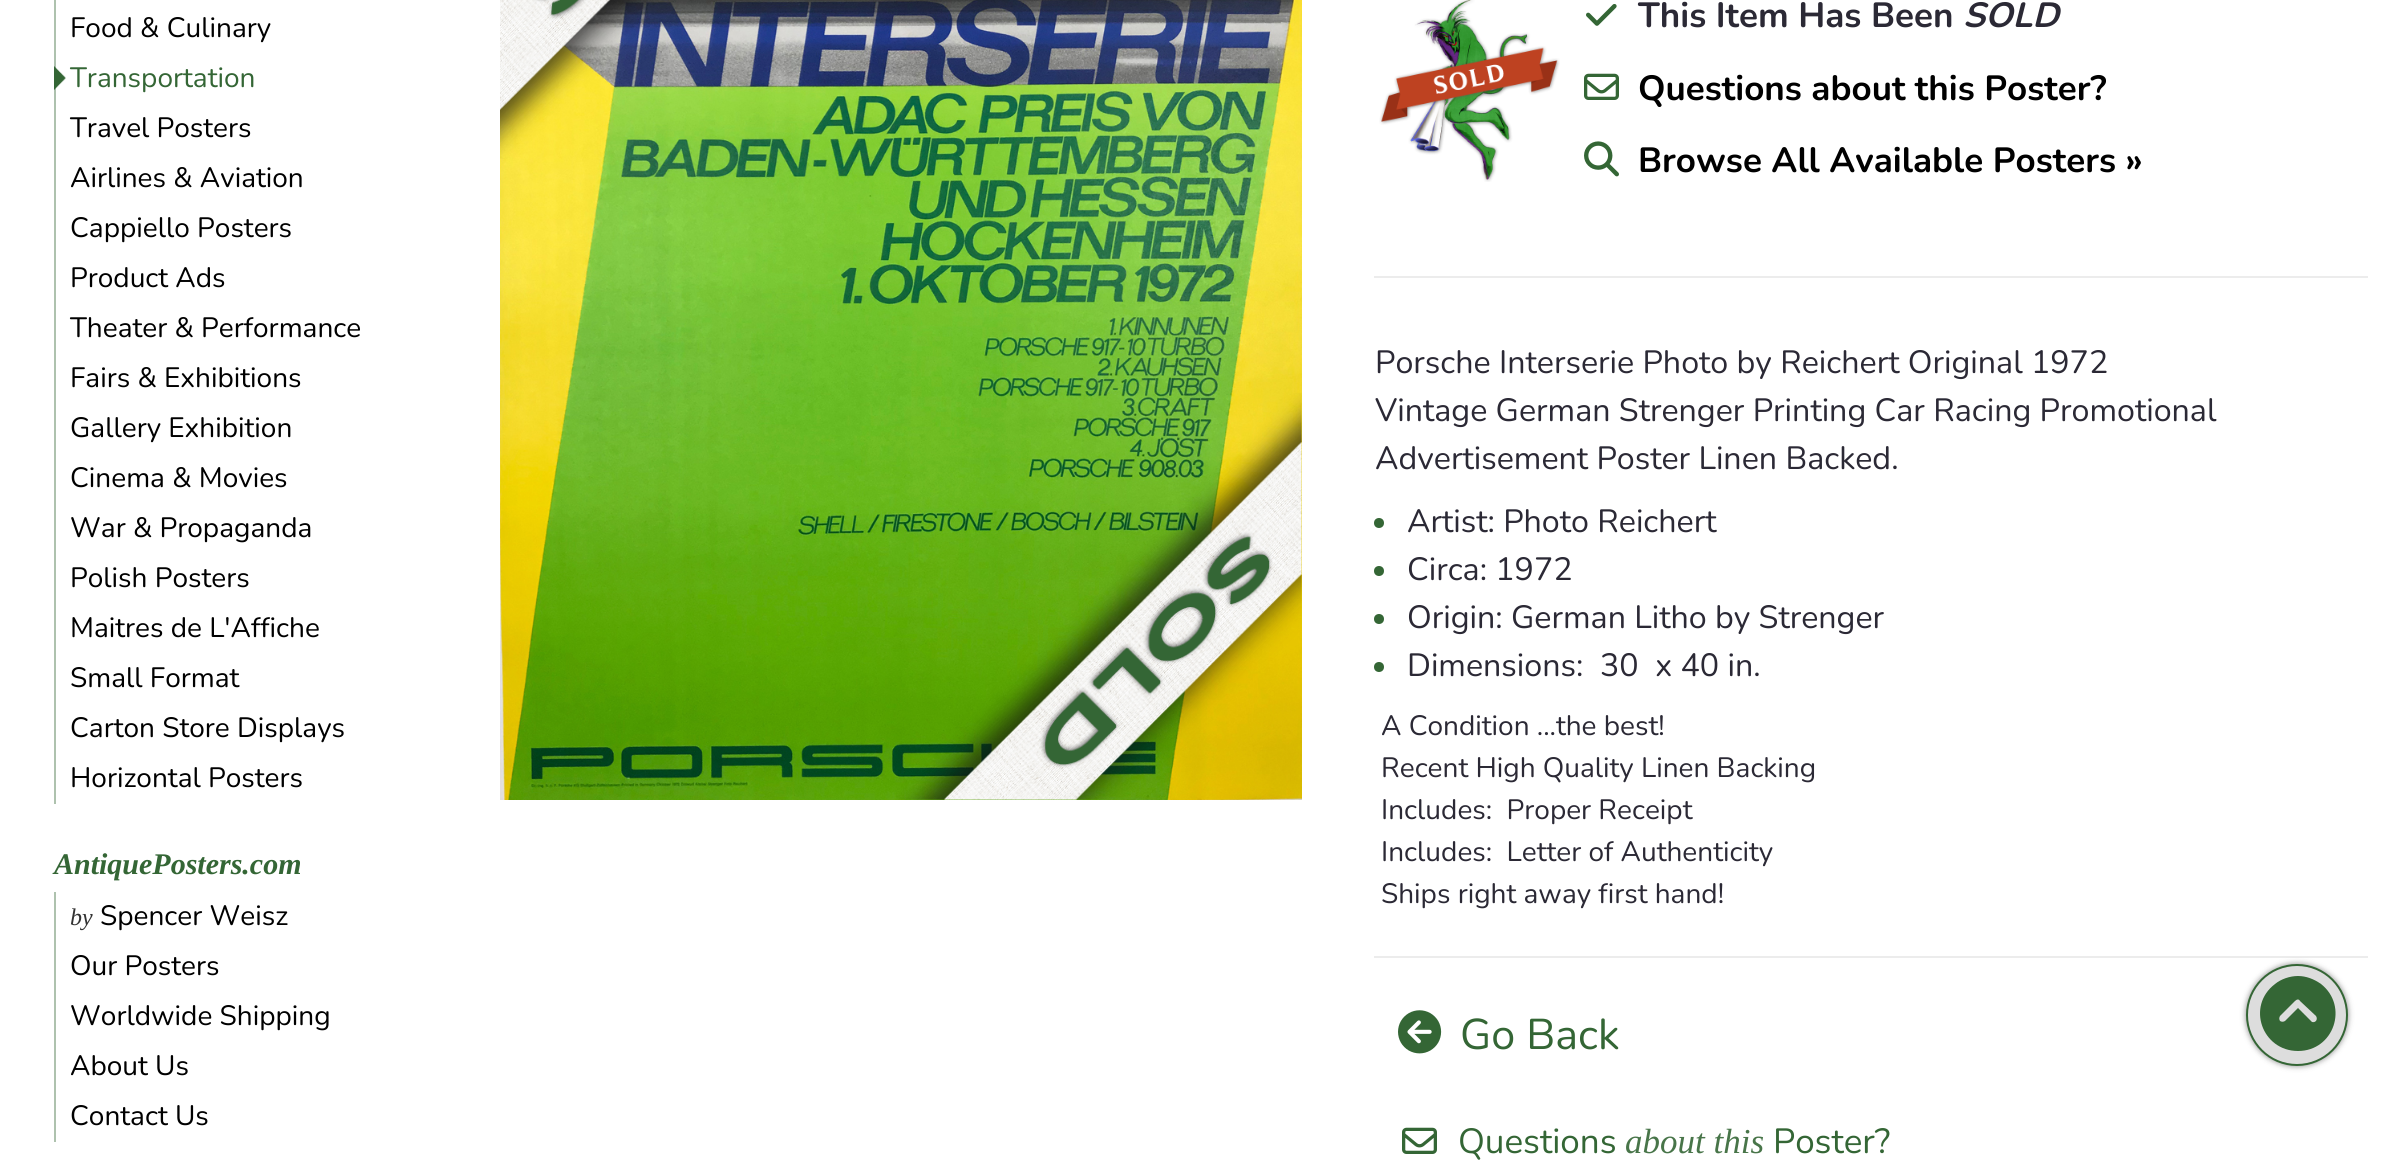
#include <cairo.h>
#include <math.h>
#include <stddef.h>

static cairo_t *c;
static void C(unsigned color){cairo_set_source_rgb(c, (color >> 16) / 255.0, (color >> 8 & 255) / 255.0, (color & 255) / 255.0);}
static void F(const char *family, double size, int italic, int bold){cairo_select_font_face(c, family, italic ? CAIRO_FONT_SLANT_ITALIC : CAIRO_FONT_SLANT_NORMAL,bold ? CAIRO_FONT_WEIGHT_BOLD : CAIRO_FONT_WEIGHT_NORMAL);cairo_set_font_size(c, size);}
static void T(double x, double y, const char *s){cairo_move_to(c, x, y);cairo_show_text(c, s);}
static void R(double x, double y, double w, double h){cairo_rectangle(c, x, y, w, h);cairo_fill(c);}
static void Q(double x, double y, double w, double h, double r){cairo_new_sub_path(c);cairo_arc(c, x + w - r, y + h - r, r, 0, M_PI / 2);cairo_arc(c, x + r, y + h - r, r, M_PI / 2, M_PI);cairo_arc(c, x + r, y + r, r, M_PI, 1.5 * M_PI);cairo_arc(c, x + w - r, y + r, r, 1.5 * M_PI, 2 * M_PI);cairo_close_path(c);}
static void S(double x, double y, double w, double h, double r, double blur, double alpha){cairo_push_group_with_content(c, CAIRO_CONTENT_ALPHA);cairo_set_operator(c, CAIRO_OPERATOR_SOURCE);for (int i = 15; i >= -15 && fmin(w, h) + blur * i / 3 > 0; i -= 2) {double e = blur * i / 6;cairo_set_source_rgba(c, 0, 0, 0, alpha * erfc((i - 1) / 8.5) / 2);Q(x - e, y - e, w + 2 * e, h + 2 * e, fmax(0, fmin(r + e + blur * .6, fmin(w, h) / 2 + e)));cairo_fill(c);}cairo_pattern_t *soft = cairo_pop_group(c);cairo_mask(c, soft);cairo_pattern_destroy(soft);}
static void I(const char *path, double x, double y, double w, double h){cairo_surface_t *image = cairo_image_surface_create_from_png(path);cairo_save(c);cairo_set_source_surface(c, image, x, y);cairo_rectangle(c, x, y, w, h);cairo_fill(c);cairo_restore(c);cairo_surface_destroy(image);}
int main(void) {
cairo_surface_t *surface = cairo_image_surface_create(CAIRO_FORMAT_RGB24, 2407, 1162);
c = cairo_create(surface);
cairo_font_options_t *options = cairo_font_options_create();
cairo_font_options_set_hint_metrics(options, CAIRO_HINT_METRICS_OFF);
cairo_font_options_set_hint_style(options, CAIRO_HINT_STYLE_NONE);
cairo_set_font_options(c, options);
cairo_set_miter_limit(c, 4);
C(0xffffff);
cairo_paint(c);
C(0xaec2ae);
R(54,0,2,54);
F("Nunito",28,0,0);
C(0x000000);
T(70,37,"Food & Culinary");
I("1.png",54,66,12,24);
cairo_set_source_rgba(c,0.204,0.4,0.208,0.4);
R(54,54,2,50);
C(0x346635);
T(70,87,"Transportation");
C(0xaec2ae);
R(54,104,2,700);
C(0x000000);
T(70,137,"Travel Posters");
T(70,187,"Airlines & Aviation");
T(70,237,"Cappiello Posters");
T(70,287,"Product Ads");
T(70,337,"Theater & Performance");
T(70,387,"Fairs & Exhibitions");
T(70,437,"Gallery Exhibition");
T(70,487,"Cinema & Movies");
T(70,537,"War & Propaganda");
T(70,587,"Polish Posters");
T(70,637,"Maitres de L'Affiche");
T(70,687,"Small Format");
T(70,737,"Carton Store Displays");
T(70,787,"Horizontal Posters");
F("Liberation Serif",30,1,1);
C(0x346635);
T(54,874,"AntiquePosters.com");
C(0xaec2ae);
R(54,892,2,250);
F("Liberation Serif",24,1,0);
C(0x333333);
T(70,925,"by");
F("Nunito",28,0,0);
C(0x000000);
T(100,925,"Spencer Weisz");
T(70,975,"Our Posters");
T(70,1025,"Worldwide Shipping");
T(70,1075,"About Us");
T(70,1125,"Contact Us");
I("2.png",500,0,802,800);
I("3.png",500,0,148,159);
I("4.png",896,393,406,407);
C(0xececec);
R(1374,276,994,2);
I("5.png",1379,0,181,182);
I("6.png",1586,4,31,22);
F("Nunito",35,0,1);
C(0x2b2935);
T(1638,27,"This Item Has Been");
F("Nunito",35,1,1);
T(1963,27,"SOLD");
I("7.png",1584,73,35,27);
F("Nunito",35,0,1);
C(0x000000);
T(1638,100,"Questions about this Poster?");
I("8.png",1584,141,35,36);
T(1638,172,"Browse All Available Posters »");
F("Nunito",32.2,0,0);
C(0x2b2935);
T(1375,373,"Porsche Interserie Photo by Reichert Original 1972");
T(1375,421,"Vintage German Strenger Printing Car Racing Promotional");
T(1375,469,"Advertisement Poster Linen Backed.");
C(0x346635);
cairo_new_path(c);
cairo_arc(c,1379,523,5,0,2 * M_PI);
cairo_fill(c);
C(0x2b2935);
T(1407,532,"Artist: Photo Reichert");
C(0x346635);
cairo_new_path(c);
cairo_arc(c,1379,571,5,0,2 * M_PI);
cairo_fill(c);
C(0x2b2935);
T(1407,580,"Circa: 1972");
C(0x346635);
cairo_new_path(c);
cairo_arc(c,1379,619,5,0,2 * M_PI);
cairo_fill(c);
C(0x2b2935);
T(1407,628,"Origin: German Litho by Strenger");
C(0x346635);
cairo_new_path(c);
cairo_arc(c,1379,667,5,0,2 * M_PI);
cairo_fill(c);
C(0x2b2935);
T(1407,676,"Dimensions:");
T(1600,676,"30  x 40 in.");
F("Nunito",28,0,0);
T(1381,735,"A Condition ...the best!");
T(1381,777,"Recent High Quality Linen Backing");
T(1381,819,"Includes:  Proper Receipt");
T(1381,861,"Includes:  Letter of Authenticity");
T(1381,903,"Ships right away first hand!");
C(0xececec);
R(1374,956,994,2);
I("9.png",1398,1010,44,44);
F("Nunito",43,0,0);
C(0x346635);
T(1460,1049,"Go Back");
I("7.png",1402,1127,35,27);
F("Nunito",35,0,0);
T(1458,1153,"Questions");
F("Liberation Serif",35,1,0);
C(0x487549);
T(1625,1153,"about this");
F("Nunito",35,0,0);
C(0x346635);
T(1773,1153,"Poster?");
C(0x141414);
S(2246,964,102,102,51,3,.5);
C(0xdddddd);
cairo_arc(c,2297,1015,50,0,2 * M_PI);
cairo_fill_preserve(c);
C(0x346635);
cairo_stroke(c);
cairo_new_path(c);
cairo_move_to(c,2298,1051);
cairo_curve_to(c,2334,1051,2349,1006,2321,984);
cairo_curve_to(c,2314,979,2306,976,2298,976);
cairo_curve_to(c,2290,976,2281,979,2275,984);
cairo_curve_to(c,2246,1006,2262,1051,2298,1051);
cairo_close_path(c);
cairo_move_to(c,2316,1016);
cairo_curve_to(c,2318,1019,2316,1023,2312,1022);
cairo_line_to(c,2298,1008);
cairo_line_to(c,2285,1021);
cairo_curve_to(c,2283,1022,2282,1022,2280,1021);
cairo_curve_to(c,2279,1019,2279,1018,2280,1016);
cairo_line_to(c,2295,1001);
cairo_curve_to(c,2297,999,2299,999,2300,1001);
cairo_close_path(c);
cairo_fill(c);
cairo_surface_write_to_png(surface, "o.png");
cairo_font_options_destroy(options);
cairo_destroy(c);
cairo_surface_destroy(surface);
return 0;
}
